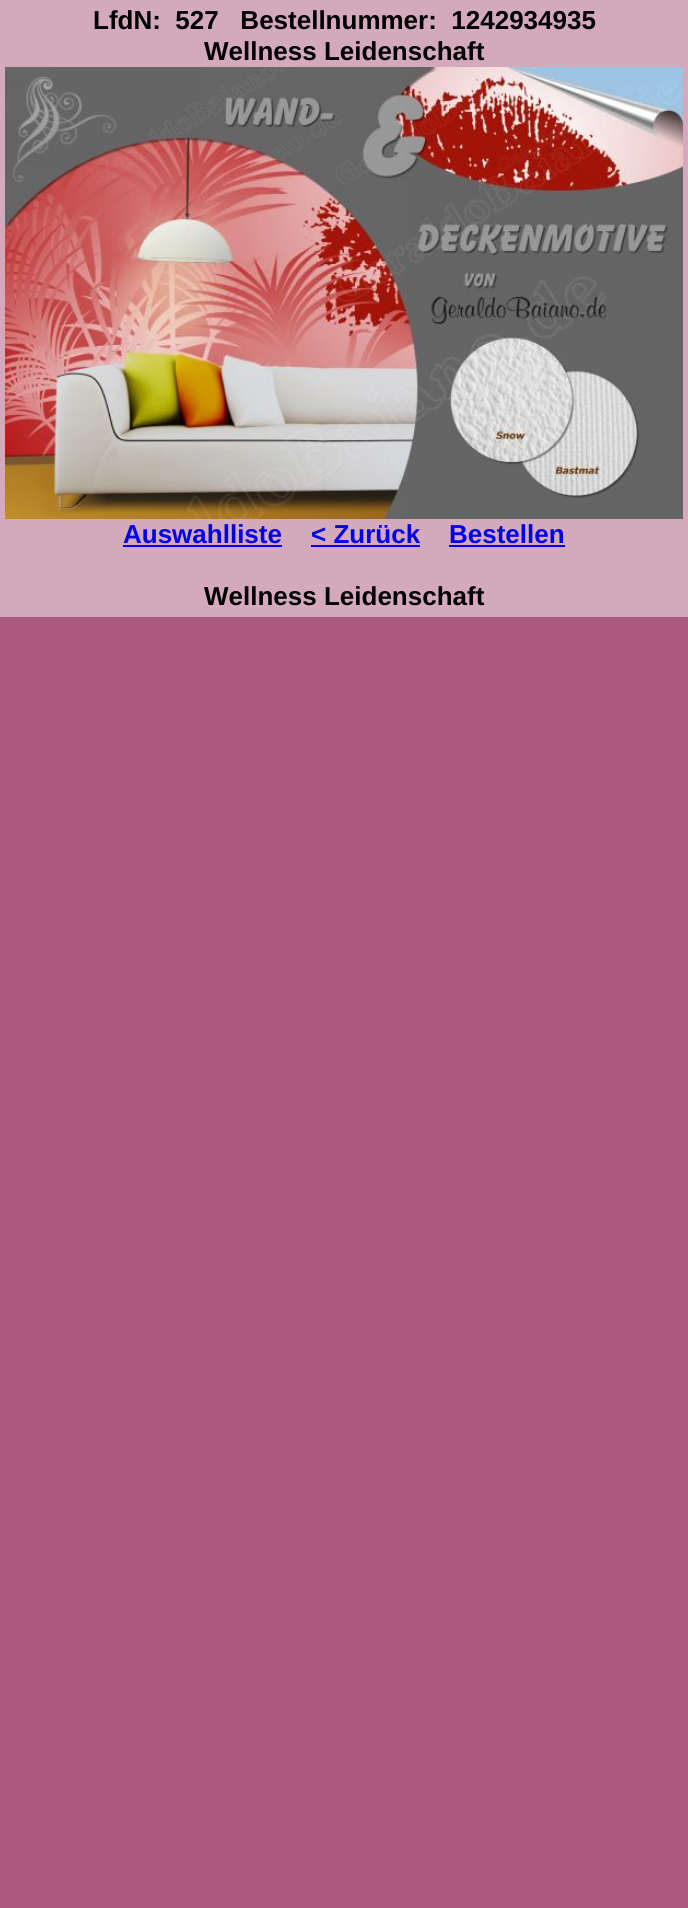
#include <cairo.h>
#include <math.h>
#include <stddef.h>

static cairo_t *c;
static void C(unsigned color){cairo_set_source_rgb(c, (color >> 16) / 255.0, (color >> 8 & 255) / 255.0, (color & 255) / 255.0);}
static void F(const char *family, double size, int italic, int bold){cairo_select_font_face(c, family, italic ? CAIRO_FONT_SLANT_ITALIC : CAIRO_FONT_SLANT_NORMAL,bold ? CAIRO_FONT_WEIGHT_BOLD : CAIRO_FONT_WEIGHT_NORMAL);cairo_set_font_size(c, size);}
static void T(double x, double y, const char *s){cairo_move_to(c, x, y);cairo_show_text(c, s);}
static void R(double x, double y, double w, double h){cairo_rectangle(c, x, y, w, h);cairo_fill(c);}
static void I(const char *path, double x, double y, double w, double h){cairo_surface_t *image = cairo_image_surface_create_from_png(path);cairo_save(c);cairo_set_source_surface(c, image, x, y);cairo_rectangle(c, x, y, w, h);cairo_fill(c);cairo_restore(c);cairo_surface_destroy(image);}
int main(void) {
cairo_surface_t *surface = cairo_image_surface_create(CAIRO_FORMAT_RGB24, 688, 1908);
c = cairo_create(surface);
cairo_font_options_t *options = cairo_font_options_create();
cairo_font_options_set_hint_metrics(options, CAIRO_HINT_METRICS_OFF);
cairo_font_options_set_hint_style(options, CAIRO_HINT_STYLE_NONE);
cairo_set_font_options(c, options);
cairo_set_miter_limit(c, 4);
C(0xac5b7f);
cairo_paint(c);
C(0xd4a9bc);
R(0,0,688,617);
F("Liberation Sans",26,0,1);
C(0x000000);
T(93,29,"LfdN:  527   Bestellnummer:  1242934935");
T(204,60,"Wellness Leidenschaft");
I("1.png",5,67,678,452);
C(0x0000ee);
T(123,543,"Auswahlliste");
R(123,545,159,2);
T(311,543,"< Zurück");
R(311,545,109,2);
T(449,543,"Bestellen");
R(449,545,116,2);
C(0x000000);
T(204,605,"Wellness Leidenschaft");
cairo_surface_write_to_png(surface, "o.png");
cairo_font_options_destroy(options);
cairo_destroy(c);
cairo_surface_destroy(surface);
return 0;
}
